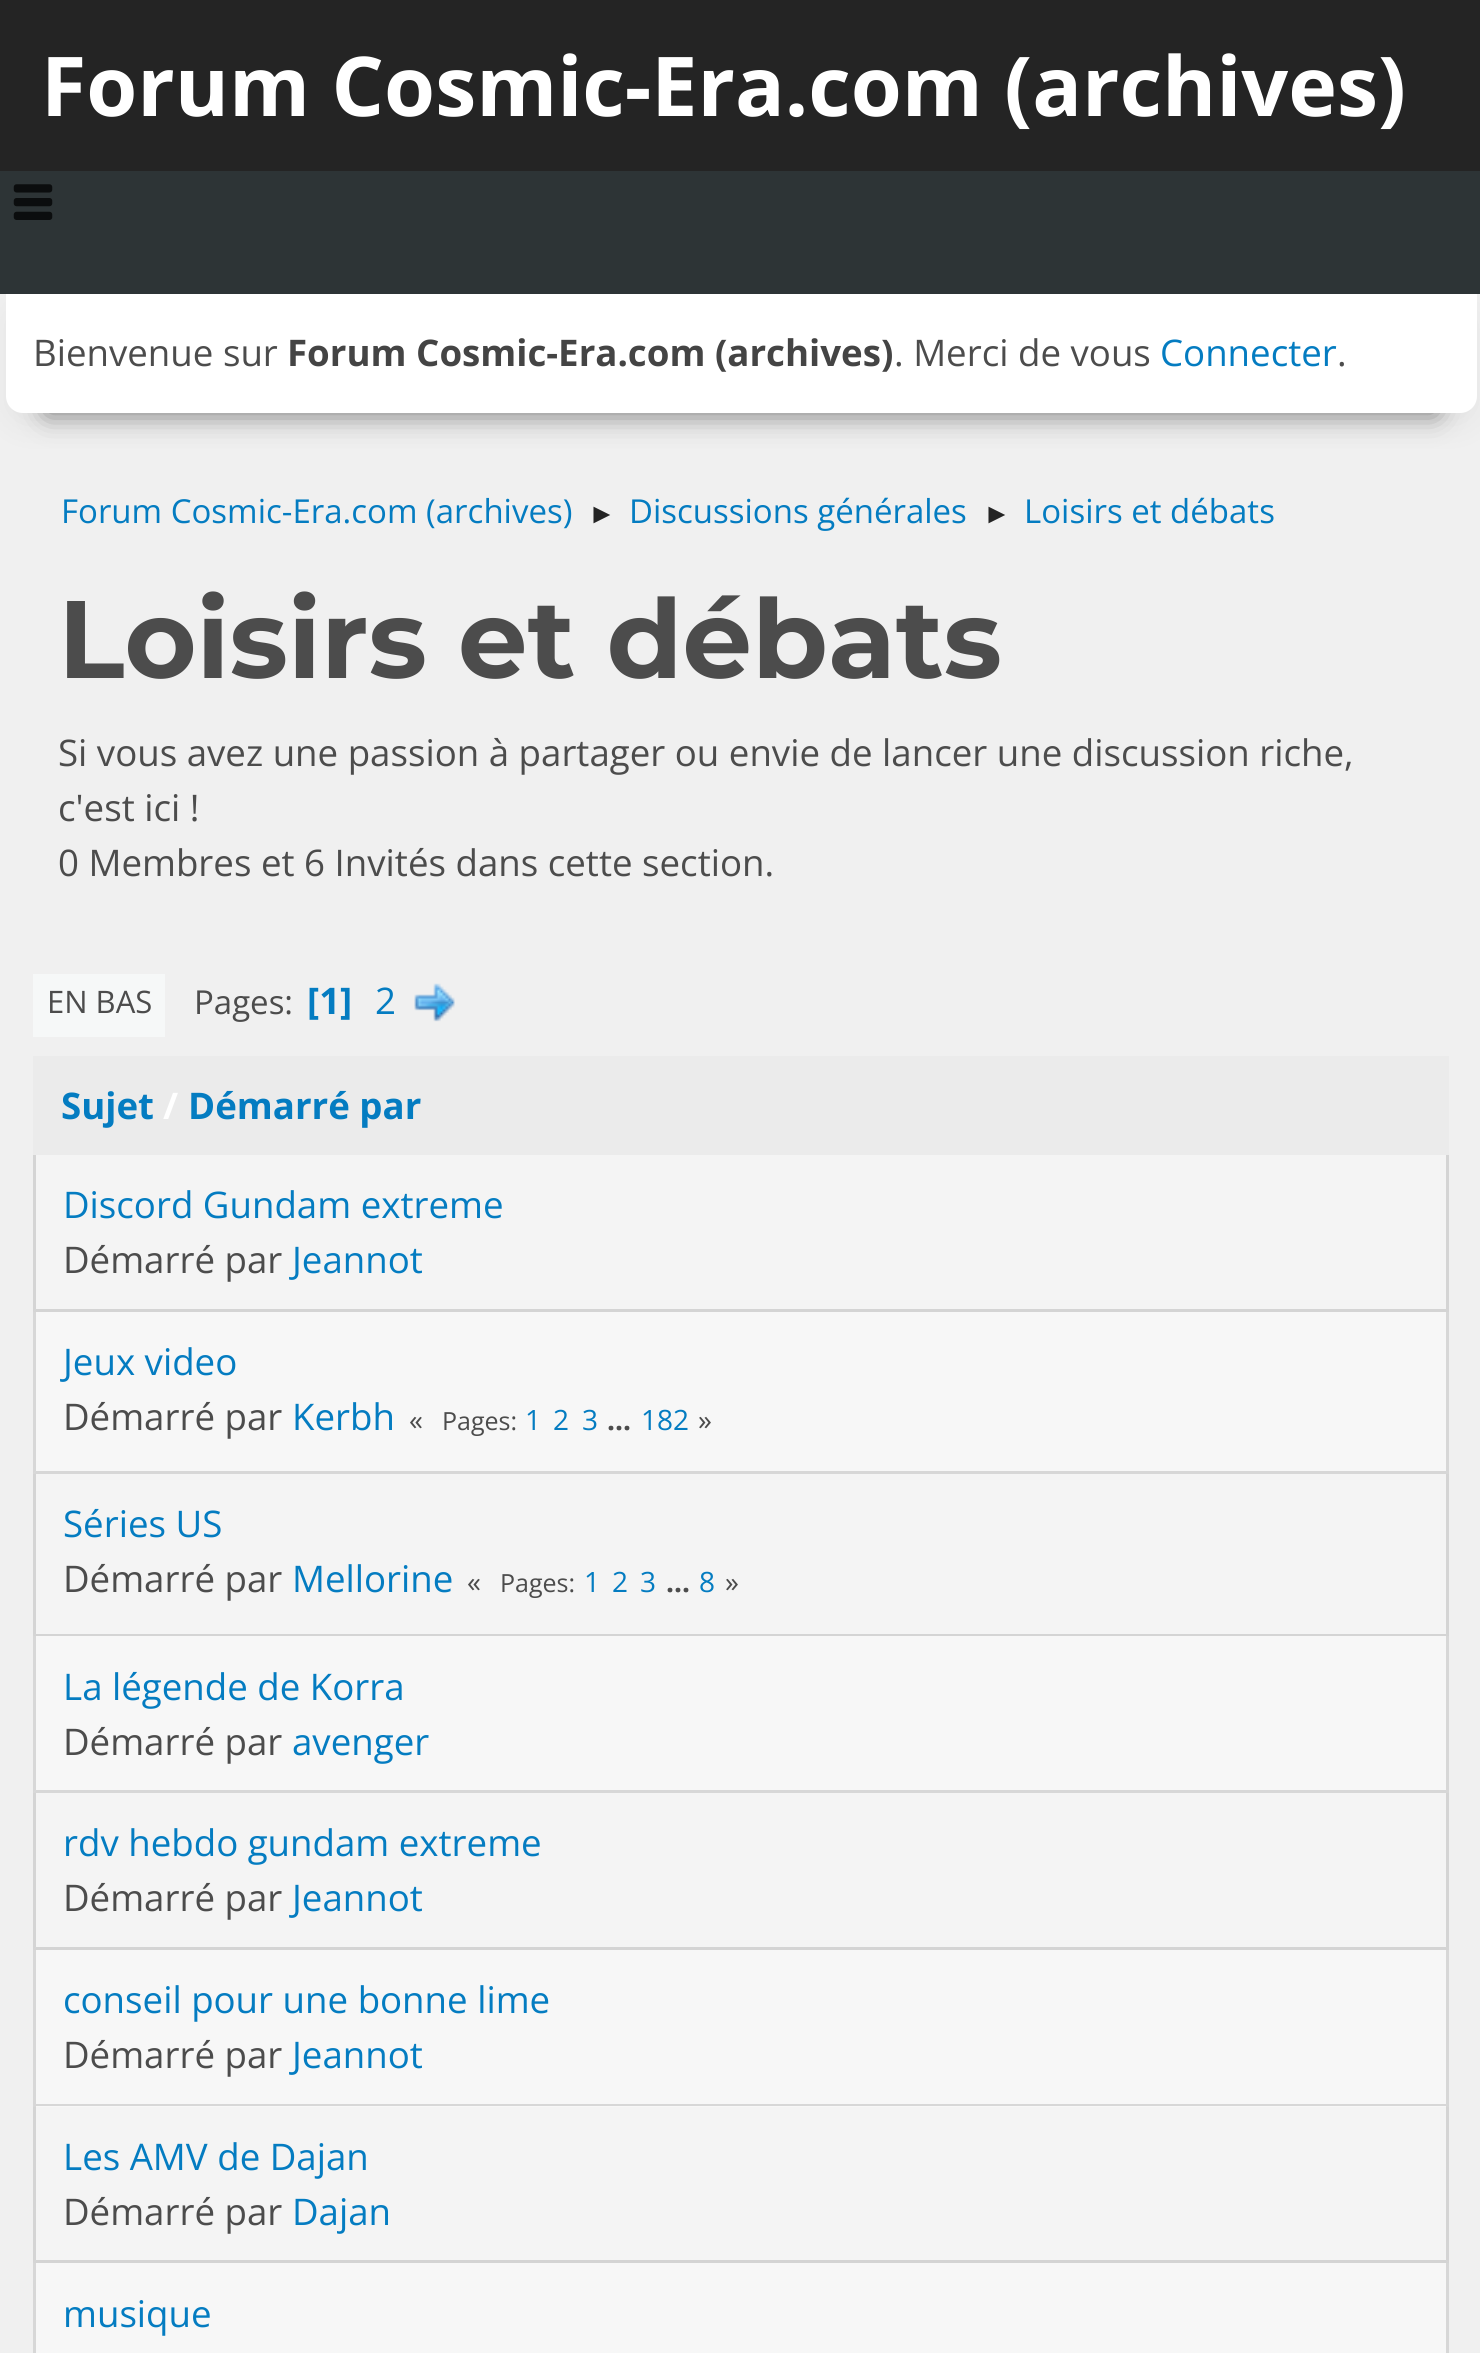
#include <cairo.h>
#include <math.h>
#include <stddef.h>

static cairo_t *c;
static void C(unsigned color){cairo_set_source_rgb(c, (color >> 16) / 255.0, (color >> 8 & 255) / 255.0, (color & 255) / 255.0);}
static void F(const char *family, double size, int italic, int bold){cairo_select_font_face(c, family, italic ? CAIRO_FONT_SLANT_ITALIC : CAIRO_FONT_SLANT_NORMAL,bold ? CAIRO_FONT_WEIGHT_BOLD : CAIRO_FONT_WEIGHT_NORMAL);cairo_set_font_size(c, size);}
static void T(double x, double y, const char *s){cairo_move_to(c, x, y);cairo_show_text(c, s);}
static void R(double x, double y, double w, double h){cairo_rectangle(c, x, y, w, h);cairo_fill(c);}
static void Q(double x, double y, double w, double h, double r){cairo_new_sub_path(c);cairo_arc(c, x + w - r, y + h - r, r, 0, M_PI / 2);cairo_arc(c, x + r, y + h - r, r, M_PI / 2, M_PI);cairo_arc(c, x + r, y + r, r, M_PI, 1.5 * M_PI);cairo_arc(c, x + w - r, y + r, r, 1.5 * M_PI, 2 * M_PI);cairo_close_path(c);}
static void S(double x, double y, double w, double h, double r, double blur, double alpha){cairo_push_group_with_content(c, CAIRO_CONTENT_ALPHA);cairo_set_operator(c, CAIRO_OPERATOR_SOURCE);for (int i = 15; i >= -15 && fmin(w, h) + blur * i / 3 > 0; i -= 2) {double e = blur * i / 6;cairo_set_source_rgba(c, 0, 0, 0, alpha * erfc((i - 1) / 8.5) / 2);Q(x - e, y - e, w + 2 * e, h + 2 * e, fmax(0, fmin(r + e + blur * .6, fmin(w, h) / 2 + e)));cairo_fill(c);}cairo_pattern_t *soft = cairo_pop_group(c);cairo_mask(c, soft);cairo_pattern_destroy(soft);}
static void I(const char *path, double x, double y, double w, double h){cairo_surface_t *image = cairo_image_surface_create_from_png(path);cairo_save(c);cairo_set_source_surface(c, image, x, y);cairo_rectangle(c, x, y, w, h);cairo_fill(c);cairo_restore(c);cairo_surface_destroy(image);}
int main(void) {
cairo_surface_t *surface = cairo_image_surface_create(CAIRO_FORMAT_RGB24, 1480, 2353);
c = cairo_create(surface);
cairo_font_options_t *options = cairo_font_options_create();
cairo_font_options_set_hint_metrics(options, CAIRO_HINT_METRICS_OFF);
cairo_font_options_set_hint_style(options, CAIRO_HINT_STYLE_NONE);
cairo_set_font_options(c, options);
cairo_set_miter_limit(c, 4);
C(0xf0f0f0);
cairo_paint(c);
C(0x242424);
R(0,0,1480,171);
F("Open Sans",82.5,0,1);
C(0xffffff);
T(41,116,"Forum Cosmic-Era.com (archives)");
C(0x000000);
S(6,305,1471,119,17,16.5,.05);
C(0x2d3436);
R(0,171,1480,123);
I("1.png",13,184,40,36);
C(0x010000);
S(47,377,1389,36,0,14,.5);
C(0xffffff);
cairo_new_path(c);
cairo_move_to(c,6,294);
cairo_line_to(c,1477,294);
cairo_line_to(c,1477,396);
cairo_curve_to(c,1477,405.5,1469.5,413,1460,413);
cairo_line_to(c,23,413);
cairo_curve_to(c,13.5,413,6,405.5,6,396);
cairo_close_path(c);
cairo_fill(c);
F("Open Sans",36.65,0,0);
C(0x4c4c4c);
T(33,366,"Bienvenue sur");
F("Open Sans",36.65,0,1);
C(0x444444);
T(287,366,"Forum Cosmic-Era.com (archives)");
F("Open Sans",36.65,0,0);
C(0x4c4c4c);
T(894,366,". Merci de vous");
C(0x047cc1);
T(1160,366,"Connecter");
C(0x4c4c4c);
T(1337,366,".");
F("Open Sans",33,0,0);
C(0x047cc1);
T(61,523,"Forum Cosmic-Era.com (archives)");
F("Liberation Sans",28,0,0);
C(0x242424);
T(588,523,"►");
F("Open Sans",33,0,0);
C(0x047cc1);
T(629,523,"Discussions générales");
F("Liberation Sans",28,0,0);
C(0x242424);
T(983,523,"►");
F("Open Sans",33,0,0);
C(0x047cc1);
T(1024,523,"Loisirs et débats");
F("Montserrat",110,0,1);
C(0x4c4c4c);
T(58,678,"Loisirs et débats");
F("Open Sans",36.65,0,0);
T(58,766,"Si vous avez une passion à partager ou envie de lancer une discussion riche,");
T(58,821,"c'est ici !");
T(58,876,"0 Membres et 6 Invités dans cette section.");
C(0xf6f8f8);
R(33,974,132,63);
F("Open Sans",31,0,0);
C(0x4c4c4c);
T(47,1013,"EN BAS");
F("Open Sans",33,0,0);
T(194,1014,"Pages:");
F("Open Sans",36.65,0,1);
C(0x047cc1);
T(307,1014,"[1]");
F("Open Sans",36.65,0,0);
T(375,1014,"2");
I("2.png",414,983,41,39);
C(0xebebeb);
R(33,1056,1416,99);
F("Open Sans",36.65,0,1);
C(0x047cc1);
T(61,1119,"Sujet");
C(0xffffff);
T(163,1119,"/");
C(0x047cc1);
T(188,1119,"Démarré par");
C(0xf4f4f4);
R(33,1155,1416,157);
C(0xd4d4d4);
cairo_new_path(c);
cairo_move_to(c,1449,1155);
cairo_line_to(c,1449,1312);
cairo_line_to(c,1446,1309);
cairo_line_to(c,1446,1155);
cairo_close_path(c);
cairo_fill(c);
cairo_set_source_rgba(c,0,0,0,0.13);
cairo_new_path(c);
cairo_move_to(c,1449,1312);
cairo_line_to(c,33,1312);
cairo_line_to(c,36,1309);
cairo_line_to(c,1446,1309);
cairo_close_path(c);
cairo_fill(c);
cairo_new_path(c);
cairo_move_to(c,33,1312);
cairo_line_to(c,33,1155);
cairo_line_to(c,36,1155);
cairo_line_to(c,36,1309);
cairo_close_path(c);
cairo_fill(c);
F("Open Sans",36.65,0,0);
C(0x047cc1);
T(63,1218,"Discord Gundam extreme");
C(0x4c4c4c);
T(63,1273,"Démarré par");
C(0x047cc1);
T(292,1273,"Jeannot");
C(0xf7f7f7);
R(33,1312,1416,162);
C(0xd7d7d7);
cairo_new_path(c);
cairo_move_to(c,1449,1312);
cairo_line_to(c,1449,1474);
cairo_line_to(c,1446,1471);
cairo_line_to(c,1446,1312);
cairo_close_path(c);
cairo_fill(c);
cairo_set_source_rgba(c,0,0,0,0.13);
cairo_new_path(c);
cairo_move_to(c,1449,1474);
cairo_line_to(c,33,1474);
cairo_line_to(c,36,1471);
cairo_line_to(c,1446,1471);
cairo_close_path(c);
cairo_fill(c);
cairo_new_path(c);
cairo_move_to(c,33,1474);
cairo_line_to(c,33,1312);
cairo_line_to(c,36,1312);
cairo_line_to(c,36,1471);
cairo_close_path(c);
cairo_fill(c);
C(0x047cc1);
T(63,1375,"Jeux video");
C(0x4c4c4c);
T(63,1430,"Démarré par");
C(0x047cc1);
T(292,1430,"Kerbh");
F("Open Sans",28,0,0);
C(0x4c4c4c);
T(409,1430,"«");
F("Open Sans",25,0,0);
T(442,1430,"Pages:");
F("Open Sans",28,0,0);
C(0x047cc1);
T(525,1430,"1");
T(553,1430,"2");
T(582,1430,"3");
F("Open Sans",28,0,1);
C(0x4c4c4c);
T(607,1430,"...");
F("Open Sans",28,0,0);
C(0x047cc1);
T(641,1430,"182");
C(0x4c4c4c);
T(698,1430,"»");
C(0xf4f4f4);
R(33,1474,1416,162);
C(0xd4d4d4);
cairo_new_path(c);
cairo_move_to(c,1449,1474);
cairo_line_to(c,1449,1636);
cairo_line_to(c,1446,1634);
cairo_line_to(c,1446,1474);
cairo_close_path(c);
cairo_fill(c);
cairo_set_source_rgba(c,0,0,0,0.13);
cairo_new_path(c);
cairo_move_to(c,1449,1636);
cairo_line_to(c,33,1636);
cairo_line_to(c,36,1634);
cairo_line_to(c,1446,1634);
cairo_close_path(c);
cairo_fill(c);
cairo_new_path(c);
cairo_move_to(c,33,1636);
cairo_line_to(c,33,1474);
cairo_line_to(c,36,1474);
cairo_line_to(c,36,1634);
cairo_close_path(c);
cairo_fill(c);
F("Open Sans",36.65,0,0);
C(0x047cc1);
T(63,1537,"Séries US");
C(0x4c4c4c);
T(63,1592,"Démarré par");
C(0x047cc1);
T(292,1592,"Mellorine");
F("Open Sans",28,0,0);
C(0x4c4c4c);
T(467,1592,"«");
F("Open Sans",25,0,0);
T(500,1592,"Pages:");
F("Open Sans",28,0,0);
C(0x047cc1);
T(584,1592,"1");
T(612,1592,"2");
T(640,1592,"3");
F("Open Sans",28,0,1);
C(0x4c4c4c);
T(666,1592,"...");
F("Open Sans",28,0,0);
C(0x047cc1);
T(699,1592,"8");
C(0x4c4c4c);
T(725,1592,"»");
C(0xf7f7f7);
R(33,1636,1416,157);
C(0xd7d7d7);
cairo_new_path(c);
cairo_move_to(c,1449,1636);
cairo_line_to(c,1449,1793);
cairo_line_to(c,1446,1790);
cairo_line_to(c,1446,1636);
cairo_close_path(c);
cairo_fill(c);
cairo_set_source_rgba(c,0,0,0,0.13);
cairo_new_path(c);
cairo_move_to(c,1449,1793);
cairo_line_to(c,33,1793);
cairo_line_to(c,36,1790);
cairo_line_to(c,1446,1790);
cairo_close_path(c);
cairo_fill(c);
cairo_new_path(c);
cairo_move_to(c,33,1793);
cairo_line_to(c,33,1636);
cairo_line_to(c,36,1636);
cairo_line_to(c,36,1790);
cairo_close_path(c);
cairo_fill(c);
F("Open Sans",36.65,0,0);
C(0x047cc1);
T(63,1700,"La légende de Korra");
C(0x4c4c4c);
T(63,1755,"Démarré par");
C(0x047cc1);
T(292,1755,"avenger");
C(0xf4f4f4);
R(33,1793,1416,157);
C(0xd4d4d4);
cairo_new_path(c);
cairo_move_to(c,1449,1793);
cairo_line_to(c,1449,1950);
cairo_line_to(c,1446,1947);
cairo_line_to(c,1446,1793);
cairo_close_path(c);
cairo_fill(c);
cairo_set_source_rgba(c,0,0,0,0.13);
cairo_new_path(c);
cairo_move_to(c,1449,1950);
cairo_line_to(c,33,1950);
cairo_line_to(c,36,1947);
cairo_line_to(c,1446,1947);
cairo_close_path(c);
cairo_fill(c);
cairo_new_path(c);
cairo_move_to(c,33,1950);
cairo_line_to(c,33,1793);
cairo_line_to(c,36,1793);
cairo_line_to(c,36,1947);
cairo_close_path(c);
cairo_fill(c);
C(0x047cc1);
T(63,1856,"rdv hebdo gundam extreme");
C(0x4c4c4c);
T(63,1911,"Démarré par");
C(0x047cc1);
T(292,1911,"Jeannot");
C(0xf7f7f7);
R(33,1950,1416,157);
C(0xd7d7d7);
cairo_new_path(c);
cairo_move_to(c,1449,1950);
cairo_line_to(c,1449,2106);
cairo_line_to(c,1446,2104);
cairo_line_to(c,1446,1950);
cairo_close_path(c);
cairo_fill(c);
cairo_set_source_rgba(c,0,0,0,0.13);
cairo_new_path(c);
cairo_move_to(c,1449,2106);
cairo_line_to(c,33,2106);
cairo_line_to(c,36,2104);
cairo_line_to(c,1446,2104);
cairo_close_path(c);
cairo_fill(c);
cairo_new_path(c);
cairo_move_to(c,33,2106);
cairo_line_to(c,33,1950);
cairo_line_to(c,36,1950);
cairo_line_to(c,36,2104);
cairo_close_path(c);
cairo_fill(c);
C(0x047cc1);
T(63,2013,"conseil pour une bonne lime");
C(0x4c4c4c);
T(63,2068,"Démarré par");
C(0x047cc1);
T(292,2068,"Jeannot");
C(0xf4f4f4);
R(33,2107,1416,156);
cairo_set_source_rgba(c,0,0,0,0.13);
cairo_new_path(c);
cairo_move_to(c,1449,2106);
cairo_line_to(c,1449,2263);
cairo_line_to(c,1446,2260);
cairo_line_to(c,1446,2106);
cairo_close_path(c);
cairo_fill(c);
cairo_new_path(c);
cairo_move_to(c,1449,2263);
cairo_line_to(c,33,2263);
cairo_line_to(c,36,2260);
cairo_line_to(c,1446,2260);
cairo_close_path(c);
cairo_fill(c);
cairo_new_path(c);
cairo_move_to(c,33,2263);
cairo_line_to(c,33,2106);
cairo_line_to(c,36,2106);
cairo_line_to(c,36,2260);
cairo_close_path(c);
cairo_fill(c);
C(0x047cc1);
T(63,2170,"Les AMV de Dajan");
C(0x4c4c4c);
T(63,2225,"Démarré par");
C(0x047cc1);
T(292,2225,"Dajan");
C(0xf7f7f7);
R(36,2263,1410,90);
C(0xd7d7d7);
cairo_new_path(c);
cairo_move_to(c,1449,2263);
cairo_line_to(c,1449,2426);
cairo_line_to(c,1446,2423);
cairo_line_to(c,1446,2263);
cairo_close_path(c);
cairo_fill(c);
cairo_new_path(c);
cairo_move_to(c,33,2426);
cairo_line_to(c,33,2263);
cairo_line_to(c,36,2263);
cairo_line_to(c,36,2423);
cairo_close_path(c);
cairo_fill(c);
C(0x047cc1);
T(63,2327,"musique");
cairo_surface_write_to_png(surface, "o.png");
cairo_font_options_destroy(options);
cairo_destroy(c);
cairo_surface_destroy(surface);
return 0;
}
